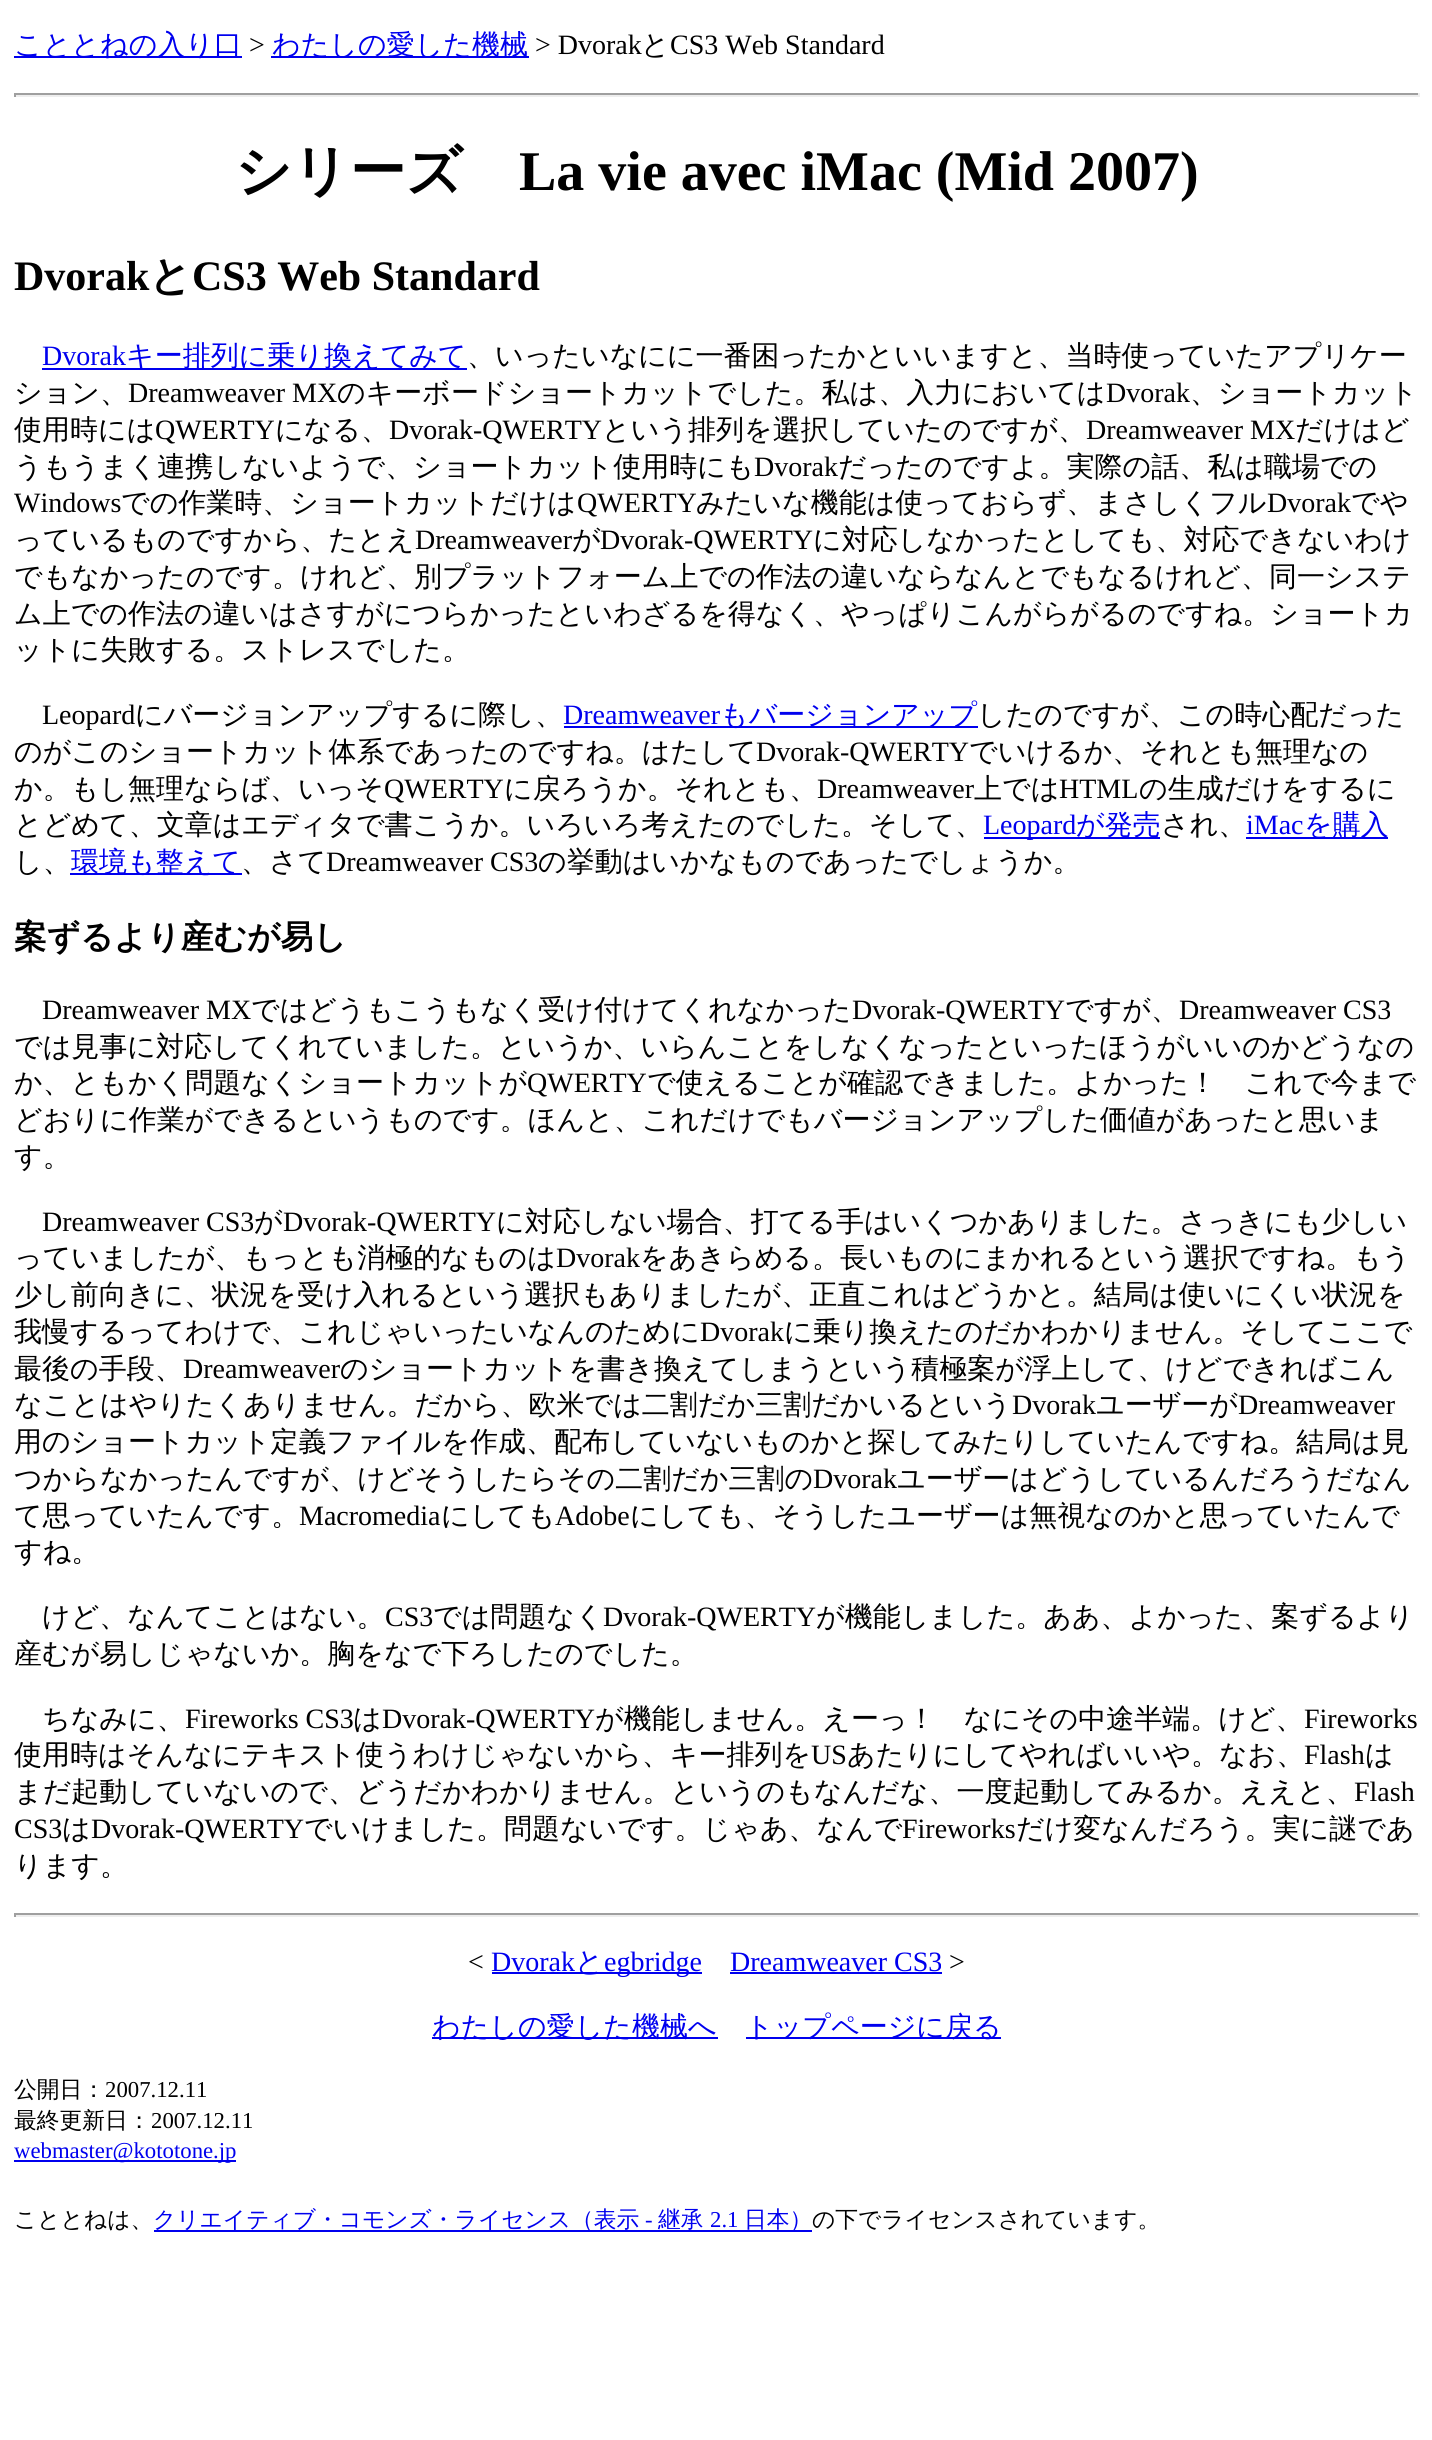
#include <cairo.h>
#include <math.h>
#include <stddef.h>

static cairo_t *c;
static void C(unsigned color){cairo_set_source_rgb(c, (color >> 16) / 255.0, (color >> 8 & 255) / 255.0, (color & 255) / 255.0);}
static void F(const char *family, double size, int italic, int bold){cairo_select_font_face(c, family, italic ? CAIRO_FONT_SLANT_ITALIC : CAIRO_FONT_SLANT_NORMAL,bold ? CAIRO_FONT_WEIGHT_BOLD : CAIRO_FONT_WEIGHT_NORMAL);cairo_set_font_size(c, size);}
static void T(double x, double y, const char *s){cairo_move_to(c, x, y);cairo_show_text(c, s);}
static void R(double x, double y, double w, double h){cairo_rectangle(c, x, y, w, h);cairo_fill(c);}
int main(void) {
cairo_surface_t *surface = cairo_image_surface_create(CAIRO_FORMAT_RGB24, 1432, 2440);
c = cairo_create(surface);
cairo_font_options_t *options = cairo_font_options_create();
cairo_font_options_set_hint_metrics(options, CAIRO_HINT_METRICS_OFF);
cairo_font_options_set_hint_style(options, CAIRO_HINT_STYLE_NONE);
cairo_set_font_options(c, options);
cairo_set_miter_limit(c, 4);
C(0xffffff);
cairo_paint(c);
C(0x0000ee);
R(14,56,228,2);
F("WenQuanYi Zen Hei Medium",28,0,0);
T(14,54,"こととねの入り口");
F("Liberation Serif",28,0,0);
C(0x000000);
T(249,54,">");
C(0x0000ee);
R(271,56,258,2);
F("WenQuanYi Zen Hei Medium",28,0,0);
T(272,54,"わたしの愛した機械");
F("Liberation Serif",28,0,0);
C(0x000000);
T(535,54,"> Dvorak");
F("WenQuanYi Zen Hei Medium",28,0,0);
T(641,54,"と");
F("Liberation Serif",28,0,0);
T(670,54,"CS3 Web Standard");
C(0x9f9f9f);
R(14,93,1405,2);
C(0xeeeeee);
R(1418,93,2,4);
R(14,95,1405,2);
C(0x9f9f9f);
R(14,93,2,4);
F("WenQuanYi Zen Hei",56,0,1);
C(0x000000);
T(235,190,"シリーズ");
F("Liberation Serif",56,0,1);
T(519,190,"La vie avec iMac (Mid 2007)");
F("Liberation Serif",42,0,1);
T(14,290,"Dvorak");
F("WenQuanYi Zen Hei",42,0,1);
T(149,290,"と");
F("Liberation Serif",42,0,1);
T(192,290,"CS3 Web Standard");
F("Liberation Serif",28,0,0);
C(0x0000ee);
T(42,365,"Dvorak");
R(42,368,425,2);
F("WenQuanYi Zen Hei Medium",28,0,0);
T(126,365,"キー排列に乗り換えてみて");
C(0x000000);
T(467,365,"、いったいなにに一番困ったかといいますと、当時使っていたアプリケー");
T(14,402,"ション、");
F("Liberation Serif",28,0,0);
T(128,402,"Dreamweaver MX");
F("WenQuanYi Zen Hei Medium",28,0,0);
T(337,402,"のキーボードショートカットでした。私は、入力においては");
F("Liberation Serif",28,0,0);
T(1106,402,"Dvorak");
F("WenQuanYi Zen Hei Medium",28,0,0);
T(1190,402,"、ショートカット");
T(14,439,"使用時には");
F("Liberation Serif",28,0,0);
T(155,439,"QWERTY");
F("WenQuanYi Zen Hei Medium",28,0,0);
T(275,439,"になる、");
F("Liberation Serif",28,0,0);
T(389,439,"Dvorak-QWERTY");
F("WenQuanYi Zen Hei Medium",28,0,0);
T(602,439,"という排列を選択していたのですが、");
F("Liberation Serif",28,0,0);
T(1086,439,"Dreamweaver MX");
F("WenQuanYi Zen Hei Medium",28,0,0);
T(1295,439,"だけはど");
T(14,476,"うもうまく連携しないようで、ショートカット使用時にも");
F("Liberation Serif",28,0,0);
T(754,476,"Dvorak");
F("WenQuanYi Zen Hei Medium",28,0,0);
T(838,476,"だったのですよ。実際の話、私は職場での");
F("Liberation Serif",28,0,0);
T(14,512,"Windows");
F("WenQuanYi Zen Hei Medium",28,0,0);
T(121,512,"での作業時、ショートカットだけは");
F("Liberation Serif",28,0,0);
T(577,512,"QWERTY");
F("WenQuanYi Zen Hei Medium",28,0,0);
T(696,512,"みたいな機能は使っておらず、まさしくフル");
F("Liberation Serif",28,0,0);
T(1267,512,"Dvorak");
F("WenQuanYi Zen Hei Medium",28,0,0);
T(1351,512,"でや");
T(14,549,"っているものですから、たとえ");
F("Liberation Serif",28,0,0);
T(415,549,"Dreamweaver");
F("WenQuanYi Zen Hei Medium",28,0,0);
T(572,549,"が");
F("Liberation Serif",28,0,0);
T(600,549,"Dvorak-QWERTY");
F("WenQuanYi Zen Hei Medium",28,0,0);
T(813,549,"に対応しなかったとしても、対応できないわけ");
T(14,586,"でもなかったのです。けれど、別プラットフォーム上での作法の違いならなんとでもなるけれど、同一システ");
T(14,623,"ム上での作法の違いはさすがにつらかったといわざるを得なく、やっぱりこんがらがるのですね。ショートカ");
T(14,659,"ットに失敗する。ストレスでした。");
F("Liberation Serif",28,0,0);
T(42,724,"Leopard");
F("WenQuanYi Zen Hei Medium",28,0,0);
T(135,724,"にバージョンアップするに際し、");
F("Liberation Serif",28,0,0);
C(0x0000ee);
T(563,724,"Dreamweaver");
R(564,726,414,2);
F("WenQuanYi Zen Hei Medium",28,0,0);
T(720,724,"もバージョンアップ");
C(0x000000);
T(977,724,"したのですが、この時心配だった");
T(14,761,"のがこのショートカット体系であったのですね。はたして");
F("Liberation Serif",28,0,0);
T(756,761,"Dvorak-QWERTY");
F("WenQuanYi Zen Hei Medium",28,0,0);
T(969,761,"でいけるか、それとも無理なの");
T(14,798,"か。もし無理ならば、いっそ");
F("Liberation Serif",28,0,0);
T(384,798,"QWERTY");
F("WenQuanYi Zen Hei Medium",28,0,0);
T(504,798,"に戻ろうか。それとも、");
F("Liberation Serif",28,0,0);
T(817,798,"Dreamweaver");
F("WenQuanYi Zen Hei Medium",28,0,0);
T(974,798,"上では");
F("Liberation Serif",28,0,0);
T(1059,798,"HTML");
F("WenQuanYi Zen Hei Medium",28,0,0);
T(1139,798,"の生成だけをするに");
T(14,834,"とどめて、文章はエディタで書こうか。いろいろ考えたのでした。そして、");
C(0x0000ee);
R(984,837,176,2);
F("Liberation Serif",28,0,0);
T(983,834,"Leopard");
F("WenQuanYi Zen Hei Medium",28,0,0);
T(1076,834,"が発売");
C(0x000000);
T(1161,834,"され、");
F("Liberation Serif",28,0,0);
C(0x0000ee);
T(1246,834,"iMac");
R(1246,837,142,2);
F("WenQuanYi Zen Hei Medium",28,0,0);
T(1304,834,"を購入");
C(0x000000);
T(14,871,"し、");
C(0x0000ee);
R(70,873,172,2);
T(71,871,"環境も整えて");
C(0x000000);
T(241,871,"、さて");
F("Liberation Serif",28,0,0);
T(326,871,"Dreamweaver CS3");
F("WenQuanYi Zen Hei Medium",28,0,0);
T(538,871,"の挙動はいかなものであったでしょうか。");
F("WenQuanYi Zen Hei",32.75,0,1);
T(14,948,"案ずるより産むが易し");
F("Liberation Serif",28,0,0);
T(42,1019,"Dreamweaver MX");
F("WenQuanYi Zen Hei Medium",28,0,0);
T(251,1019,"ではどうもこうもなく受け付けてくれなかった");
F("Liberation Serif",28,0,0);
T(852,1019,"Dvorak-QWERTY");
F("WenQuanYi Zen Hei Medium",28,0,0);
T(1065,1019,"ですが、");
F("Liberation Serif",28,0,0);
T(1179,1019,"Dreamweaver CS3");
F("WenQuanYi Zen Hei Medium",28,0,0);
T(14,1056,"では見事に対応してくれていました。というか、いらんことをしなくなったといったほうがいいのかどうなの");
T(14,1092,"か、ともかく問題なくショートカットが");
F("Liberation Serif",28,0,0);
T(527,1092,"QWERTY");
F("WenQuanYi Zen Hei Medium",28,0,0);
T(647,1092,"で使えることが確認できました。よかった！　これで今まで");
T(14,1129,"どおりに作業ができるというものです。ほんと、これだけでもバージョンアップした価値があったと思いま");
T(14,1166,"す。");
F("Liberation Serif",28,0,0);
T(42,1231,"Dreamweaver CS3");
F("WenQuanYi Zen Hei Medium",28,0,0);
T(254,1231,"が");
F("Liberation Serif",28,0,0);
T(283,1231,"Dvorak-QWERTY");
F("WenQuanYi Zen Hei Medium",28,0,0);
T(496,1231,"に対応しない場合、打てる手はいくつかありました。さっきにも少しい");
T(14,1267,"っていましたが、もっとも消極的なものは");
F("Liberation Serif",28,0,0);
T(556,1267,"Dvorak");
F("WenQuanYi Zen Hei Medium",28,0,0);
T(640,1267,"をあきらめる。長いものにまかれるという選択ですね。もう");
T(14,1304,"少し前向きに、状況を受け入れるという選択もありましたが、正直これはどうかと。結局は使いにくい状況を");
T(14,1341,"我慢するってわけで、これじゃいったいなんのために");
F("Liberation Serif",28,0,0);
T(700,1341,"Dvorak");
F("WenQuanYi Zen Hei Medium",28,0,0);
T(784,1341,"に乗り換えたのだかわかりません。そしてここで");
T(14,1378,"最後の手段、");
F("Liberation Serif",28,0,0);
T(183,1378,"Dreamweaver");
F("WenQuanYi Zen Hei Medium",28,0,0);
T(340,1378,"のショートカットを書き換えてしまうという積極案が浮上して、けどできればこん");
T(14,1414,"なことはやりたくありません。だから、欧米では二割だか三割だかいるという");
F("Liberation Serif",28,0,0);
T(1012,1414,"Dvorak");
F("WenQuanYi Zen Hei Medium",28,0,0);
T(1096,1414,"ユーザーが");
F("Liberation Serif",28,0,0);
T(1238,1414,"Dreamweaver");
F("WenQuanYi Zen Hei Medium",28,0,0);
T(14,1451,"用のショートカット定義ファイルを作成、配布していないものかと探してみたりしていたんですね。結局は見");
T(14,1488,"つからなかったんですが、けどそうしたらその二割だか三割の");
F("Liberation Serif",28,0,0);
T(813,1488,"Dvorak");
F("WenQuanYi Zen Hei Medium",28,0,0);
T(897,1488,"ユーザーはどうしているんだろうだなん");
T(14,1525,"て思っていたんです。");
F("Liberation Serif",28,0,0);
T(299,1525,"Macromedia");
F("WenQuanYi Zen Hei Medium",28,0,0);
T(441,1525,"にしても");
F("Liberation Serif",28,0,0);
T(555,1525,"Adobe");
F("WenQuanYi Zen Hei Medium",28,0,0);
T(630,1525,"にしても、そうしたユーザーは無視なのかと思っていたんで");
T(14,1561,"すね。");
T(42,1626,"けど、なんてことはない。");
F("Liberation Serif",28,0,0);
T(385,1626,"CS3");
F("WenQuanYi Zen Hei Medium",28,0,0);
T(433,1626,"では問題なく");
F("Liberation Serif",28,0,0);
T(603,1626,"Dvorak-QWERTY");
F("WenQuanYi Zen Hei Medium",28,0,0);
T(816,1626,"が機能しました。ああ、よかった、案ずるより");
T(14,1663,"産むが易しじゃないか。胸をなで下ろしたのでした。");
T(42,1728,"ちなみに、");
F("Liberation Serif",28,0,0);
T(185,1728,"Fireworks CS3");
F("WenQuanYi Zen Hei Medium",28,0,0);
T(353,1728,"は");
F("Liberation Serif",28,0,0);
T(382,1728,"Dvorak-QWERTY");
F("WenQuanYi Zen Hei Medium",28,0,0);
T(595,1728,"が機能しません。えーっ！　なにその中途半端。けど、");
F("Liberation Serif",28,0,0);
T(1304,1728,"Fireworks");
F("WenQuanYi Zen Hei Medium",28,0,0);
T(14,1764,"使用時はそんなにテキスト使うわけじゃないから、キー排列を");
F("Liberation Serif",28,0,0);
T(811,1764,"US");
F("WenQuanYi Zen Hei Medium",28,0,0);
T(847,1764,"あたりにしてやればいいや。なお、");
F("Liberation Serif",28,0,0);
T(1304,1764,"Flash");
F("WenQuanYi Zen Hei Medium",28,0,0);
T(1365,1764,"は");
T(14,1801,"まだ起動していないので、どうだかわかりません。というのもなんだな、一度起動してみるか。ええと、");
F("Liberation Serif",28,0,0);
T(1354,1801,"Flash");
T(14,1838,"CS3");
F("WenQuanYi Zen Hei Medium",28,0,0);
T(62,1838,"は");
F("Liberation Serif",28,0,0);
T(91,1838,"Dvorak-QWERTY");
F("WenQuanYi Zen Hei Medium",28,0,0);
T(304,1838,"でいけました。問題ないです。じゃあ、なんで");
F("Liberation Serif",28,0,0);
T(902,1838,"Fireworks");
F("WenQuanYi Zen Hei Medium",28,0,0);
T(1016,1838,"だけ変なんだろう。実に謎であ");
T(14,1875,"ります。");
C(0x9f9f9f);
R(14,1913,1405,2);
C(0xeeeeee);
R(1418,1913,2,4);
R(14,1915,1405,2);
C(0x9f9f9f);
R(14,1913,2,4);
F("Liberation Serif",28,0,0);
C(0x000000);
T(468,1971,"<");
C(0x0000ee);
T(491,1971,"Dvorak");
R(492,1972,210,2);
F("WenQuanYi Zen Hei Medium",28,0,0);
T(575,1971,"と");
F("Liberation Serif",28,0,0);
T(604,1971,"egbridge");
T(730,1971,"Dreamweaver CS3");
R(730,1972,212,2);
C(0x000000);
T(949,1971,">");
C(0x0000ee);
R(432,2037,286,2);
F("WenQuanYi Zen Hei Medium",28,0,0);
T(432,2036,"わたしの愛した機械へ");
R(746,2037,255,2);
T(745,2036,"トップページに戻る");
F("WenQuanYi Zen Hei Medium",22.75,0,0);
C(0x000000);
T(14,2097,"公開日：");
F("Liberation Serif",22.75,0,0);
T(105,2097,"2007.12.11");
F("WenQuanYi Zen Hei Medium",22.75,0,0);
T(14,2128,"最終更新日：");
F("Liberation Serif",22.75,0,0);
T(151,2128,"2007.12.11");
C(0x0000ee);
R(14,2160,222,2);
T(14,2158,"webmaster@kototone.jp");
F("WenQuanYi Zen Hei Medium",22.75,0,0);
C(0x000000);
T(14,2227,"こととねは、");
C(0x0000ee);
R(154,2230,658,2);
T(153,2227,"クリエイティブ・コモンズ・ライセンス（表示");
F("Liberation Serif",22.75,0,0);
T(645,2227,"-");
F("WenQuanYi Zen Hei Medium",22.75,0,0);
T(658,2227,"継承");
F("Liberation Serif",22.75,0,0);
T(710,2227,"2.1");
F("WenQuanYi Zen Hei Medium",22.75,0,0);
T(744,2227,"日本）");
C(0x000000);
T(812,2227,"の下でライセンスされています。");
cairo_surface_write_to_png(surface, "o.png");
cairo_font_options_destroy(options);
cairo_destroy(c);
cairo_surface_destroy(surface);
return 0;
}
